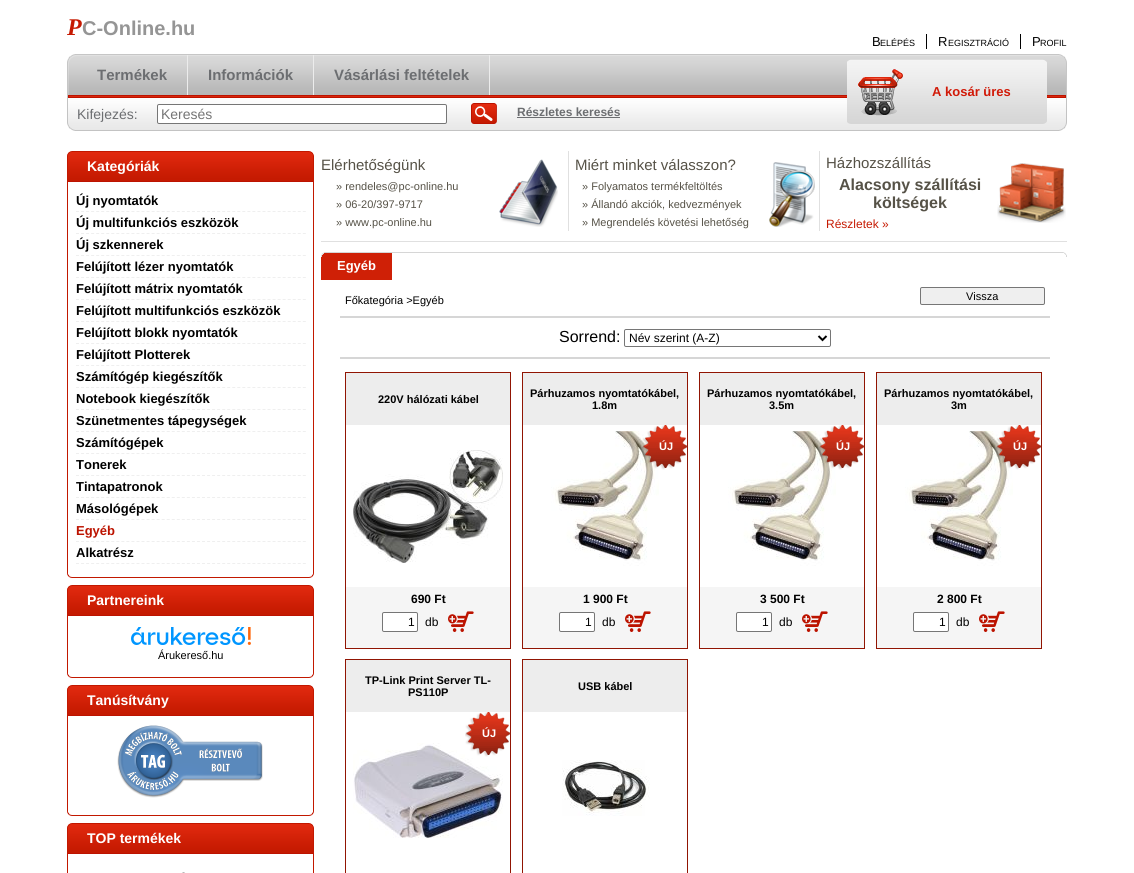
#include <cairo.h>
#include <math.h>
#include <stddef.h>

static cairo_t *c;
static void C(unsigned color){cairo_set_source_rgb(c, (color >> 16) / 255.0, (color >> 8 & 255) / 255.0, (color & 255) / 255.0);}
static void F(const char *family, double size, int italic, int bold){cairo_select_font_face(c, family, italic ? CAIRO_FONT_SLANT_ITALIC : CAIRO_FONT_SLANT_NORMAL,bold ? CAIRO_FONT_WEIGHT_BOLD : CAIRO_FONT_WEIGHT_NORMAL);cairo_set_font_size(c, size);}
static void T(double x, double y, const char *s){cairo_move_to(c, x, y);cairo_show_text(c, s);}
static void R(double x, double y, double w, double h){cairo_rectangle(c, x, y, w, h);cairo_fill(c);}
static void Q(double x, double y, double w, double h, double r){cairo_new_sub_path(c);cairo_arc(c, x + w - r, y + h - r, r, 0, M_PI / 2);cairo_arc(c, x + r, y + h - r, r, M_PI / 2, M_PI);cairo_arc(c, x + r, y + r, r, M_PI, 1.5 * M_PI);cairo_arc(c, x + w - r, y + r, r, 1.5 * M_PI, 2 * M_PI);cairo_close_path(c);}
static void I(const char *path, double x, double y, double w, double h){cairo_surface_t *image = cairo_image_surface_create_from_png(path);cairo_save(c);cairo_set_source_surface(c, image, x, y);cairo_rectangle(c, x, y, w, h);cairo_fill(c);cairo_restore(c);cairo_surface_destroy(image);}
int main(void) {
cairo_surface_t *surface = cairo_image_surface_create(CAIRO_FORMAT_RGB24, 1134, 873);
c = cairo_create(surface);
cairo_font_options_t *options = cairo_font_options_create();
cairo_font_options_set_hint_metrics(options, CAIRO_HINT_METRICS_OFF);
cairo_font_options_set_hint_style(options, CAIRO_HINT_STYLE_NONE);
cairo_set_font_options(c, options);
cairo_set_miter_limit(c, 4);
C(0xffffff);
cairo_paint(c);
F("Liberation Serif",24,1,1);
C(0xc61a02);
T(67,35,"P");
F("Liberation Sans",20,0,1);
C(0x959595);
T(82,35,"C-Online.hu");
F("Liberation Sans",13,0,0);
C(0x000000);
T(872,46,"B");
F("Liberation Sans",9,0,0);
T(880,46,"ELÉPÉS");
R(926,34,1,15);
F("Liberation Sans",13,0,0);
T(938,46,"R");
F("Liberation Sans",9,0,0);
T(948,46,"EGISZTRÁCIÓ");
R(1020,34,1,15);
F("Liberation Sans",13,0,0);
T(1032,46,"P");
F("Liberation Sans",9,0,0);
T(1040,46,"ROFIL");
I("1.png",67,54,10,77);
I("2.png",77,54,980,77);
C(0xececec);
R(187,55,1,40);
F("Liberation Sans",15,0,1);
C(0x6c6e71);
T(97,80,"Termékek");
C(0xececec);
R(313,55,1,40);
C(0x6c6e71);
T(208,80,"Információk");
C(0xececec);
R(489,55,1,40);
C(0x6c6e71);
T(334,80,"Vásárlási feltételek");
F("Liberation Sans",14,0,0);
T(77,119,"Kifejezés:");
C(0xffffff);
Q(157.5,104.5,289,19,1.5);
cairo_fill_preserve(c);
C(0x767676);
cairo_set_line_width(c,1);
cairo_stroke(c);
C(0x757575);
T(161,119,"Keresés");
I("3.png",471,103,26,21);
F("Liberation Sans",12,0,1);
C(0x6c6e71);
T(517,116,"Részletes keresés");
R(517,117,103,1);
I("4.png",847,59,6,65);
I("5.png",853,59,188,65);
I("6.png",858,69,45,47);
F("Liberation Sans",13,0,1);
C(0xd11a08);
T(932,96,"A kosár üres");
I("7.png",1041,59,6,65);
I("8.png",1057,54,10,77);
I("9.png",67,151,247,31);
F("Liberation Sans",14,0,1);
C(0xffffff);
T(87,171,"Kategóriák");
C(0xc21800);
R(313,182,1,390);
R(67,182,1,390);
cairo_new_path(c);
cairo_move_to(c,76,211.5);
cairo_line_to(c,306,211.5);
C(0xefefef);
cairo_set_dash(c,(double[]){3,2.04},2,0);
cairo_stroke(c);
F("Liberation Sans",13,0,1);
C(0x000000);
T(76,205,"Új nyomtatók");
cairo_new_path(c);
cairo_move_to(c,76,233.5);
cairo_line_to(c,306,233.5);
C(0xefefef);
cairo_stroke(c);
C(0x000000);
T(76,227,"Új multifunkciós eszközök");
cairo_new_path(c);
cairo_move_to(c,76,255.5);
cairo_line_to(c,306,255.5);
C(0xefefef);
cairo_stroke(c);
C(0x000000);
T(76,249,"Új szkennerek");
cairo_new_path(c);
cairo_move_to(c,76,277.5);
cairo_line_to(c,306,277.5);
C(0xefefef);
cairo_stroke(c);
C(0x000000);
T(76,271,"Felújított lézer nyomtatók");
cairo_new_path(c);
cairo_move_to(c,76,299.5);
cairo_line_to(c,306,299.5);
C(0xefefef);
cairo_stroke(c);
C(0x000000);
T(76,293,"Felújított mátrix nyomtatók");
cairo_new_path(c);
cairo_move_to(c,76,321.5);
cairo_line_to(c,306,321.5);
C(0xefefef);
cairo_stroke(c);
C(0x000000);
T(76,315,"Felújított multifunkciós eszközök");
cairo_new_path(c);
cairo_move_to(c,76,343.5);
cairo_line_to(c,306,343.5);
C(0xefefef);
cairo_stroke(c);
C(0x000000);
T(76,337,"Felújított blokk nyomtatók");
cairo_new_path(c);
cairo_move_to(c,76,365.5);
cairo_line_to(c,306,365.5);
C(0xefefef);
cairo_stroke(c);
C(0x000000);
T(76,359,"Felújított Plotterek");
cairo_new_path(c);
cairo_move_to(c,76,387.5);
cairo_line_to(c,306,387.5);
C(0xefefef);
cairo_stroke(c);
C(0x000000);
T(76,381,"Számítógép kiegészítők");
cairo_new_path(c);
cairo_move_to(c,76,409.5);
cairo_line_to(c,306,409.5);
C(0xefefef);
cairo_stroke(c);
C(0x000000);
T(76,403,"Notebook kiegészítők");
cairo_new_path(c);
cairo_move_to(c,76,431.5);
cairo_line_to(c,306,431.5);
C(0xefefef);
cairo_stroke(c);
C(0x000000);
T(76,425,"Szünetmentes tápegységek");
cairo_new_path(c);
cairo_move_to(c,76,453.5);
cairo_line_to(c,306,453.5);
C(0xefefef);
cairo_stroke(c);
C(0x000000);
T(76,447,"Számítógépek");
cairo_new_path(c);
cairo_move_to(c,76,475.5);
cairo_line_to(c,306,475.5);
C(0xefefef);
cairo_stroke(c);
C(0x000000);
T(76,469,"Tonerek");
cairo_new_path(c);
cairo_move_to(c,76,497.5);
cairo_line_to(c,306,497.5);
C(0xefefef);
cairo_stroke(c);
C(0x000000);
T(76,491,"Tintapatronok");
cairo_new_path(c);
cairo_move_to(c,76,519.5);
cairo_line_to(c,306,519.5);
C(0xefefef);
cairo_stroke(c);
C(0x000000);
T(76,513,"Másológépek");
cairo_new_path(c);
cairo_move_to(c,76,541.5);
cairo_line_to(c,306,541.5);
C(0xefefef);
cairo_stroke(c);
C(0xbc1300);
T(76,535,"Egyéb");
cairo_new_path(c);
cairo_move_to(c,76,563.5);
cairo_line_to(c,306,563.5);
C(0xefefef);
cairo_stroke(c);
C(0x000000);
T(76,557,"Alkatrész");
I("10.png",67,572,247,6);
I("9.png",67,585,247,31);
F("Liberation Sans",14,0,1);
C(0xffffff);
T(87,605,"Partnereink");
C(0xc21800);
R(313,616,1,56);
R(67,616,1,56);
I("11.png",131,627,120,18);
F("Liberation Sans",11,0,0);
C(0x000000);
T(158,659,"Árukereső.hu");
I("10.png",67,672,247,6);
I("9.png",67,685,247,31);
F("Liberation Sans",14,0,1);
C(0xffffff);
T(87,705,"Tanúsítvány");
C(0xc21800);
R(313,716,1,94);
R(67,716,1,94);
I("12.png",117,725,146,73);
I("10.png",67,810,247,6);
I("9.png",67,823,247,31);
C(0xffffff);
T(87,843,"TOP termékek");
C(0xc21800);
R(313,854,1,19);
R(67,854,1,19);
I("13.png",182,872,3,1);
C(0xe0e0e0);
R(321,241,746,1);
F("Liberation Sans",15,0,0);
C(0x565247);
T(321,170,"Elérhetőségünk");
F("Liberation Sans",11,0,0);
T(336,190,"» rendeles@pc-online.hu");
T(336,208,"» 06-20/397-9717");
T(336,226,"» www.pc-online.hu");
I("14.png",499,159,59,68);
C(0xe0e0e0);
R(568,151,1,80);
F("Liberation Sans",15,0,0);
C(0x565247);
T(575,170,"Miért minket válasszon?");
F("Liberation Sans",11,0,0);
T(582,190,"» Folyamatos termékfeltöltés");
T(582,208,"» Állandó akciók, kedvezmények");
T(582,226,"» Megrendelés követési lehetőség");
I("15.png",769,162,46,65);
C(0xe0e0e0);
R(819,151,1,80);
F("Liberation Sans",15,0,0);
C(0x565247);
T(826,168,"Házhozszállítás");
F("Liberation Sans",16,0,1);
T(839,190,"Alacsony szállítási");
T(873,208,"költségek");
F("Liberation Sans",12,0,0);
C(0xc61a02);
T(826,228,"Részletek »");
I("16.png",997,163,69,60);
C(0xcf2006);
R(321,253,71,27);
I("17.png",321,252,746,5);
F("Liberation Sans",13,0,1);
C(0xffffff);
T(337,270,"Egyéb");
F("Liberation Sans",11,0,0);
C(0x000000);
T(345,304,"Főkategória >Egyéb");
C(0xefefef);
Q(920.5,287.5,124,17,1.5);
cairo_fill_preserve(c);
C(0x767676);
cairo_set_dash(c,NULL,0,0);
cairo_stroke(c);
C(0x000000);
T(966,300,"Vissza");
C(0xd6d6d6);
R(340,316,710,2);
F("Liberation Sans",16,0,0);
C(0x000000);
T(559,342,"Sorrend:");
Q(624.5,329.5,206,17,1.5);
C(0x767676);
cairo_stroke(c);
cairo_new_path(c);
cairo_move_to(c,818.5,336);
cairo_line_to(c,822.5,340);
cairo_line_to(c,826.5,336);
C(0x000000);
cairo_set_line_width(c,2);
cairo_stroke(c);
F("Liberation Sans",12,0,0);
T(629,342,"Név szerint (A-Z)");
C(0xd6d6d6);
R(340,357,710,2);
cairo_rectangle(c,345.5,372.5,165,276);
C(0x911503);
cairo_set_line_width(c,1);
cairo_stroke(c);
C(0xededed);
R(346,373,164,52);
F("Liberation Sans",11,0,1);
C(0x000000);
T(378,403,"220V hálózati kábel");
I("18.png",353,450,150,113);
C(0xf5f5f5);
R(346,587,164,61);
F("Liberation Sans",12,0,1);
C(0x000000);
T(411,603,"690 Ft");
C(0xffffff);
Q(382.5,612.5,35,19,1.5);
cairo_fill_preserve(c);
C(0x767676);
cairo_stroke(c);
F("Liberation Sans",12,0,0);
C(0x000000);
T(408,626,"1");
T(425,626,"db");
I("19.png",448,611,26,21);
cairo_rectangle(c,522.5,372.5,165,276);
C(0x911503);
cairo_stroke(c);
C(0xededed);
R(523,373,164,52);
F("Liberation Sans",11,0,1);
C(0x000000);
T(530,397,"Párhuzamos nyomtatókábel,");
T(592,409,"1.8m");
I("20.png",551,431,108,135);
C(0xf5f5f5);
R(523,587,164,61);
F("Liberation Sans",12,0,1);
C(0x000000);
T(583,603,"1 900 Ft");
C(0xffffff);
Q(559.5,612.5,35,19,1.5);
cairo_fill_preserve(c);
C(0x767676);
cairo_stroke(c);
F("Liberation Sans",12,0,0);
C(0x000000);
T(585,626,"1");
T(602,626,"db");
I("19.png",625,611,26,21);
I("21.png",642,425,46,45);
F("Liberation Sans",11,0,1);
C(0xffffff);
T(659,450,"ÚJ");
cairo_rectangle(c,699.5,372.5,165,276);
C(0x911503);
cairo_stroke(c);
C(0xededed);
R(700,373,164,52);
C(0x000000);
T(707,397,"Párhuzamos nyomtatókábel,");
T(769,409,"3.5m");
I("20.png",728,431,108,135);
C(0xf5f5f5);
R(700,587,164,61);
F("Liberation Sans",12,0,1);
C(0x000000);
T(760,603,"3 500 Ft");
C(0xffffff);
Q(736.5,612.5,35,19,1.5);
cairo_fill_preserve(c);
C(0x767676);
cairo_stroke(c);
F("Liberation Sans",12,0,0);
C(0x000000);
T(762,626,"1");
T(779,626,"db");
I("19.png",802,611,26,21);
I("21.png",819,425,46,45);
F("Liberation Sans",11,0,1);
C(0xffffff);
T(836,450,"ÚJ");
cairo_rectangle(c,876.5,372.5,165,276);
C(0x911503);
cairo_stroke(c);
C(0xededed);
R(877,373,164,52);
C(0x000000);
T(884,397,"Párhuzamos nyomtatókábel,");
T(951,409,"3m");
I("20.png",905,431,108,135);
C(0xf5f5f5);
R(877,587,164,61);
F("Liberation Sans",12,0,1);
C(0x000000);
T(937,603,"2 800 Ft");
C(0xffffff);
Q(913.5,612.5,35,19,1.5);
cairo_fill_preserve(c);
C(0x767676);
cairo_stroke(c);
F("Liberation Sans",12,0,0);
C(0x000000);
T(939,626,"1");
T(956,626,"db");
I("19.png",979,611,26,21);
I("21.png",996,425,46,45);
F("Liberation Sans",11,0,1);
C(0xffffff);
T(1013,450,"ÚJ");
cairo_rectangle(c,345.5,659.5,165,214);
C(0x911503);
cairo_stroke(c);
C(0xededed);
R(346,660,164,52);
C(0x000000);
T(365,684,"TP-Link Print Server TL-");
T(408,696,"PS110P");
I("22.png",353,743,150,95);
I("23.png",465,712,46,45);
C(0xffffff);
T(482,737,"ÚJ");
cairo_rectangle(c,522.5,659.5,165,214);
C(0x911503);
cairo_stroke(c);
C(0xededed);
R(523,660,164,52);
C(0x000000);
T(578,690,"USB kábel");
I("24.png",562,760,88,56);
cairo_surface_write_to_png(surface, "o.png");
cairo_font_options_destroy(options);
cairo_destroy(c);
cairo_surface_destroy(surface);
return 0;
}
